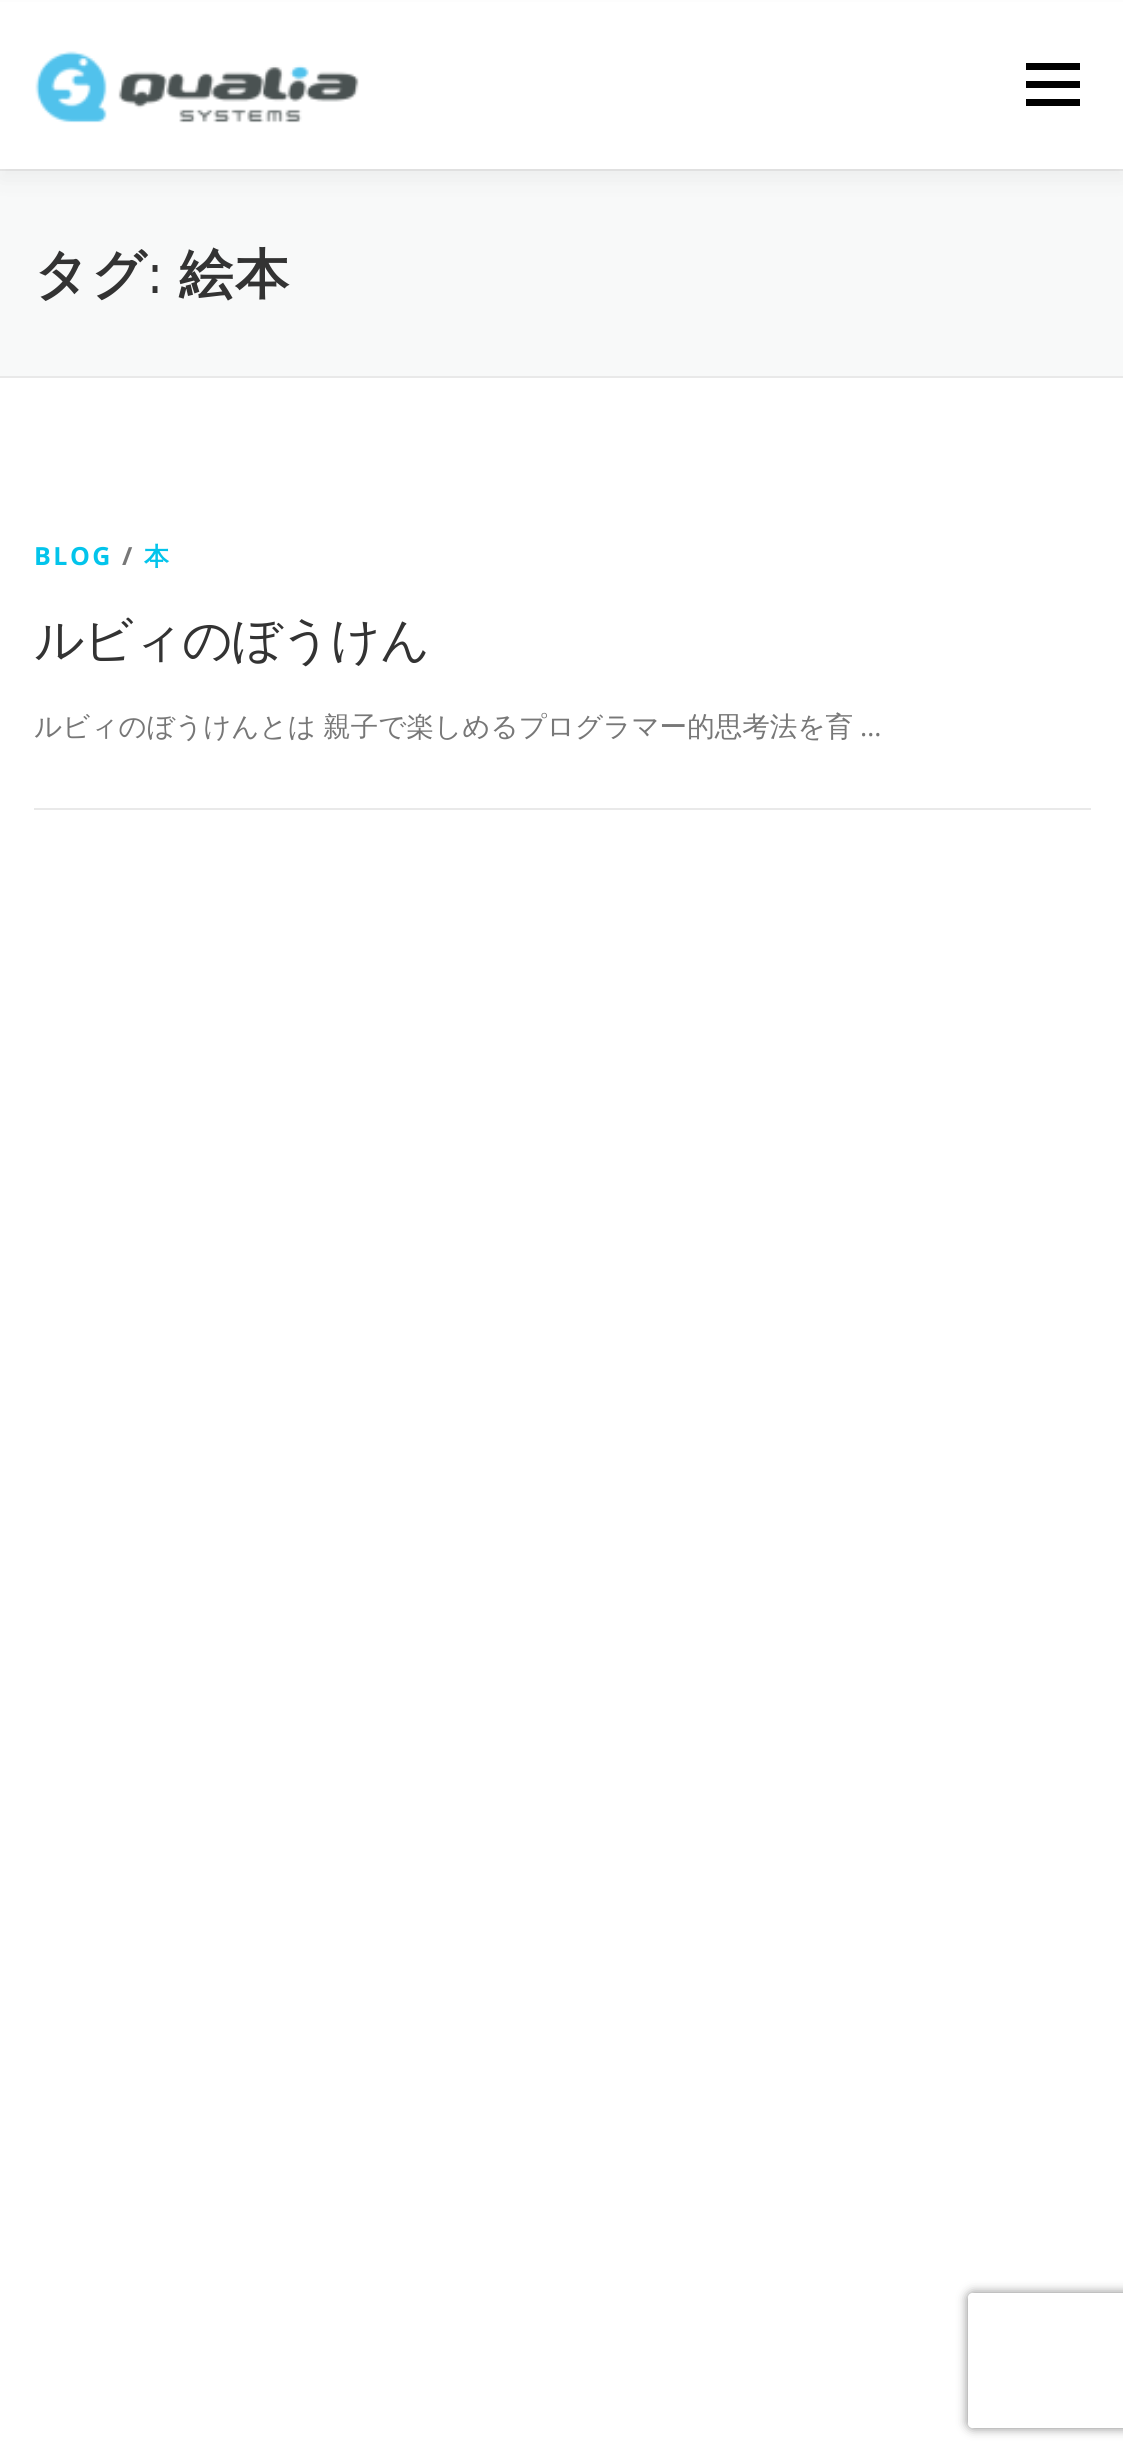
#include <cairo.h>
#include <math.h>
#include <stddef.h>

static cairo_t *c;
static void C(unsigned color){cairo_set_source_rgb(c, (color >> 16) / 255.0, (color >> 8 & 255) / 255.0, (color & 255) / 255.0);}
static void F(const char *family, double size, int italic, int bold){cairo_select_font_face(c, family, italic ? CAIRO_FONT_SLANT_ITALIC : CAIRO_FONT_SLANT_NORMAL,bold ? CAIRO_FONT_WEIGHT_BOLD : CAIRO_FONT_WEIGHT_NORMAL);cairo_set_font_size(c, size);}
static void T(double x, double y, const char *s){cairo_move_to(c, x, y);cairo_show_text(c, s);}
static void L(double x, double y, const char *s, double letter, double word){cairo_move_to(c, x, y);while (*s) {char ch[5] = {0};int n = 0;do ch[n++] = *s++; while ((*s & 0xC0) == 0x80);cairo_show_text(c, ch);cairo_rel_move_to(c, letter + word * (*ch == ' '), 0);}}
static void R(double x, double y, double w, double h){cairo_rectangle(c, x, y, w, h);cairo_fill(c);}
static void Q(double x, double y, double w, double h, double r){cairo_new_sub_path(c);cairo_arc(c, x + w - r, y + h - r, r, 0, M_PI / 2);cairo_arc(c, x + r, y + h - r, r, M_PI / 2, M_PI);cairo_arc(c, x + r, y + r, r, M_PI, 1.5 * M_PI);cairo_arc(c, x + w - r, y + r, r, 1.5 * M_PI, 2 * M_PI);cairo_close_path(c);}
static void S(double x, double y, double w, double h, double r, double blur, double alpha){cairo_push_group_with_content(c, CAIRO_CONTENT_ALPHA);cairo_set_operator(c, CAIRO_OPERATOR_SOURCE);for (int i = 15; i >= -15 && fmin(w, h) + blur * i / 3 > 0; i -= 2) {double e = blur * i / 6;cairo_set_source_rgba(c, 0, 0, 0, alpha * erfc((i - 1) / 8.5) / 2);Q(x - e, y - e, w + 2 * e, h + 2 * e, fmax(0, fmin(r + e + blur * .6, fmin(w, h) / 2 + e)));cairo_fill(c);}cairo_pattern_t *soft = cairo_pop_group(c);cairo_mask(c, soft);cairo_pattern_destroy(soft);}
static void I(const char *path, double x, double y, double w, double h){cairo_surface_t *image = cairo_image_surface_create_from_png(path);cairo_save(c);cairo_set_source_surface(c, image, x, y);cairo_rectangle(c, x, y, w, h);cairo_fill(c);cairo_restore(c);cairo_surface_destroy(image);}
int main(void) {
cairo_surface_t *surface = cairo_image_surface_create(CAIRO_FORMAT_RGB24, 1123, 2458);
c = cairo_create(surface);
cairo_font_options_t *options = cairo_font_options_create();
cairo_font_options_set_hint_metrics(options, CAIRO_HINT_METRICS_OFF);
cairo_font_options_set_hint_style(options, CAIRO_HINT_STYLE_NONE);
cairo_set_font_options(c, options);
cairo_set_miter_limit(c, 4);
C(0xffffff);
cairo_paint(c);
C(0xf8f9f9);
R(0,171,1123,205);
C(0xe9e9e9);
R(0,169,1123,2);
C(0x323232);
S(0,11,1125,169,0,11,.06);
C(0xffffff);
R(0,2,1123,167);
I("1.png",35,51,324,72);
C(0x000000);
R(1026,81,54,7);
R(1026,63,54,7);
R(1026,99,54,7);
C(0xe9e9e9);
R(0,376,1123,2);
F("WenQuanYi Zen Hei",54,0,1);
C(0x333333);
L(34,293,"タグ",2,0);
F("Raleway SemiBold",54,0,0);
L(149,293,":",2,0);
F("WenQuanYi Zen Hei",54,0,1);
L(179,293,"絵本",2,0);
C(0xe9e9e9);
R(34,808,1057,2);
F("Open Sans",25,0,1);
C(0x03c4eb);
L(34,565,"BLOG",2.5,0);
C(0x777777);
L(122,565,"/",2.5,0);
F("WenQuanYi Zen Hei",25,0,1);
C(0x03c4eb);
L(144,565,"本",2.5,0);
F("WenQuanYi Zen Hei Medium",49.5,0,0);
C(0x333333);
L(34,657,"ルビィのぼうけん",-1.25,0);
F("WenQuanYi Zen Hei Medium",27.55,0,0);
C(0x777777);
L(34,736,"ルビィのぼうけんとは 親子で楽しめるプログラマー的思考法を育",0,-1);
F("Open Sans",27.55,0,0);
T(860,736,"…");
cairo_save(c);
cairo_set_fill_rule(c,CAIRO_FILL_RULE_EVEN_ODD);
cairo_new_path(c);
cairo_move_to(c,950,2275);
cairo_line_to(c,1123,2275);
cairo_line_to(c,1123,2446);
cairo_line_to(c,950,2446);
cairo_close_path(c);
cairo_move_to(c,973,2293);
cairo_line_to(c,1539,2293);
cairo_curve_to(c,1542,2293,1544,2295,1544,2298);
cairo_line_to(c,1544,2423);
cairo_curve_to(c,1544,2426,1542,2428,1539,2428);
cairo_line_to(c,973,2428);
cairo_curve_to(c,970,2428,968,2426,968,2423);
cairo_line_to(c,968,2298);
cairo_curve_to(c,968,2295,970,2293,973,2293);
cairo_close_path(c);
cairo_clip(c);
C(0x808080);
S(968,2293,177,135,5,5.5,1);
cairo_restore(c);
cairo_surface_write_to_png(surface, "o.png");
cairo_font_options_destroy(options);
cairo_destroy(c);
cairo_surface_destroy(surface);
return 0;
}
